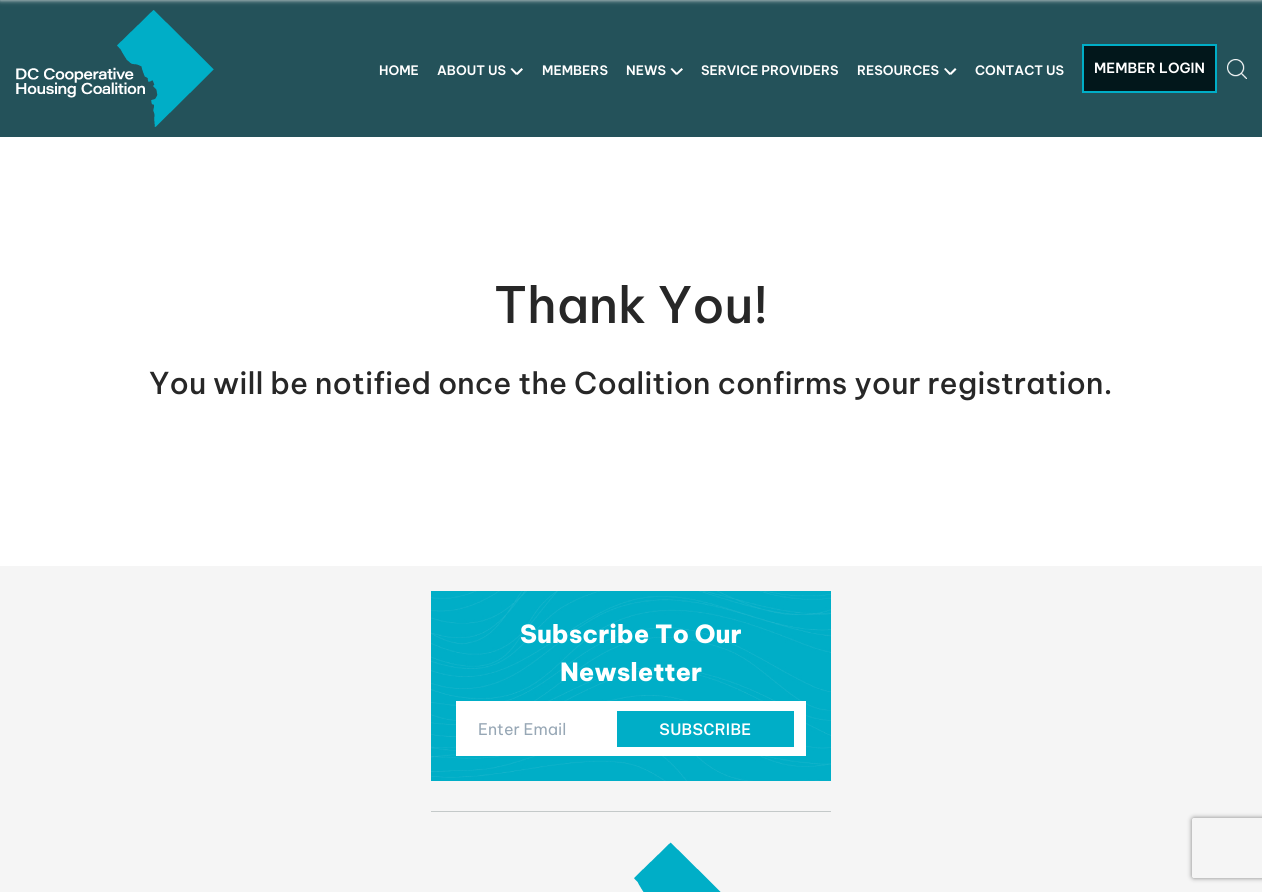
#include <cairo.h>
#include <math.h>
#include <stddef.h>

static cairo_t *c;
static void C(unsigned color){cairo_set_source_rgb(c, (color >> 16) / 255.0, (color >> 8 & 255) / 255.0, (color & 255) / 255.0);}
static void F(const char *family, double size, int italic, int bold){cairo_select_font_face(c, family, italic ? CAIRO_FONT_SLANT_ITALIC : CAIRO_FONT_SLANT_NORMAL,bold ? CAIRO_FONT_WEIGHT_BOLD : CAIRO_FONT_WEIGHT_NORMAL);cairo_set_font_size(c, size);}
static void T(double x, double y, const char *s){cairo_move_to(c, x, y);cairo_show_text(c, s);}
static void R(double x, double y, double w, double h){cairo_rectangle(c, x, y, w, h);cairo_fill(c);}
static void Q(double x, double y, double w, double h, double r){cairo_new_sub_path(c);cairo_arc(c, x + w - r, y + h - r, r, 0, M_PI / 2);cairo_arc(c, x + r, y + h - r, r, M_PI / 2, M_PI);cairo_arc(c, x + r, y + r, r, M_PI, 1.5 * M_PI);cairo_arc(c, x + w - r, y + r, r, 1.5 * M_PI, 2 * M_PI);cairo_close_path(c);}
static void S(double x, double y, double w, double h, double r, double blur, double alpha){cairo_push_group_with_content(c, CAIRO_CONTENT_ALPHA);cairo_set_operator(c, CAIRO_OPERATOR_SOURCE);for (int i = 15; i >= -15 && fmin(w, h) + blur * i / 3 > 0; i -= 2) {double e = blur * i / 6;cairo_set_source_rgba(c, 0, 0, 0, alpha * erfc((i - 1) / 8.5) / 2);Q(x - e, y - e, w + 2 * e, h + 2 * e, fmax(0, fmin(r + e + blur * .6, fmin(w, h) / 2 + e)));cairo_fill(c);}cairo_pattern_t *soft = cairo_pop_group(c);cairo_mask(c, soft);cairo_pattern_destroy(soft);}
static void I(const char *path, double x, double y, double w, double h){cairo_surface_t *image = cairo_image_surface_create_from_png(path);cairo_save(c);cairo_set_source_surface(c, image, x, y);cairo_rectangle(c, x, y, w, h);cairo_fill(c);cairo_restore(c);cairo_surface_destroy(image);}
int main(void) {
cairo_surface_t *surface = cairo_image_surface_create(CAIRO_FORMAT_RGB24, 1262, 892);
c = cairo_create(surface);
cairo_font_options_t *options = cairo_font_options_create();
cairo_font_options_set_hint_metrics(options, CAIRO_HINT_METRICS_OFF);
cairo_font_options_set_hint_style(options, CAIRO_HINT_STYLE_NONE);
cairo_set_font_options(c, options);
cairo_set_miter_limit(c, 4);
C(0xffffff);
cairo_paint(c);
C(0x24525a);
R(0,0,1262,137);
I("1.png",16,10,198,117);
C(0xeeeeee);
S(0,-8,1262,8,0,2.5,1);
I("2.png",1227,59,20,20);
F("Be Vietnam Pro SemiBold",13,0,0);
C(0xffffff);
T(379,75,"HOME");
T(437,75,"ABOUT US");
cairo_new_path(c);
cairo_move_to(c,517.5,73.5);
cairo_line_to(c,516,75);
cairo_line_to(c,510.5,69);
cairo_line_to(c,512,68);
cairo_close_path(c);
cairo_fill(c);
cairo_new_path(c);
cairo_move_to(c,521.5,68);
cairo_line_to(c,523,69.5);
cairo_line_to(c,517.5,75);
cairo_line_to(c,516,73.5);
cairo_close_path(c);
cairo_fill(c);
T(542,75,"MEMBERS");
T(626,75,"NEWS");
cairo_new_path(c);
cairo_move_to(c,677.5,73.5);
cairo_line_to(c,676,75);
cairo_line_to(c,670.5,69);
cairo_line_to(c,672,68);
cairo_close_path(c);
cairo_fill(c);
cairo_new_path(c);
cairo_move_to(c,681.5,68);
cairo_line_to(c,683,69.5);
cairo_line_to(c,677,75);
cairo_line_to(c,676,73.5);
cairo_close_path(c);
cairo_fill(c);
T(701,75,"SERVICE PROVIDERS");
T(857,75,"RESOURCES");
cairo_new_path(c);
cairo_move_to(c,951,73.5);
cairo_line_to(c,949.5,75);
cairo_line_to(c,944,69);
cairo_line_to(c,945.5,68);
cairo_close_path(c);
cairo_fill(c);
cairo_new_path(c);
cairo_move_to(c,955,68);
cairo_line_to(c,956.5,69.5);
cairo_line_to(c,951,75);
cairo_line_to(c,949.5,73.5);
cairo_close_path(c);
cairo_fill(c);
T(975,75,"CONTACT US");
C(0x02171b);
cairo_rectangle(c,1083,45,133,47);
cairo_fill_preserve(c);
C(0x00aec7);
cairo_stroke(c);
F("Be Vietnam Pro SemiBold",14,0,0);
C(0xffffff);
T(1094,73,"MEMBER LOGIN");
F("Be Vietnam Pro Medium",50,0,0);
C(0x272727);
T(494,323,"Thank You!");
F("Be Vietnam Pro Medium",30,0,0);
T(149,394,"You will be notified once the Coalition confirms your registration.");
C(0xf5f5f5);
R(0,566,1262,326);
I("3.png",431,591,400,190);
F("Be Vietnam Pro ExtraBold",25,0,0);
C(0xffffff);
T(520,643,"Subscribe To Our");
T(560,681,"Newsletter");
R(456,701,350,55);
F("Be Vietnam Pro",16,0,0);
C(0x97a7b5);
T(478,735,"Enter Email");
C(0x00aec7);
R(617,711,177,36);
F("Public Sans SemiBold",16,0,0);
C(0xffffff);
T(659,735,"SUBSCRIBE");
C(0xc4c9c9);
R(431,811,400,1);
I("4.png",634,842,87,50);
cairo_save(c);
cairo_set_fill_rule(c,CAIRO_FILL_RULE_EVEN_ODD);
cairo_new_path(c);
cairo_move_to(c,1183,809);
cairo_line_to(c,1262,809);
cairo_line_to(c,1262,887);
cairo_line_to(c,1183,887);
cairo_close_path(c);
cairo_move_to(c,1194,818);
cairo_line_to(c,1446,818);
cairo_curve_to(c,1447,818,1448,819,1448,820);
cairo_line_to(c,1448,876);
cairo_curve_to(c,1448,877,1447,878,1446,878);
cairo_line_to(c,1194,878);
cairo_curve_to(c,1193,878,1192,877,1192,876);
cairo_line_to(c,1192,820);
cairo_curve_to(c,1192,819,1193,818,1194,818);
cairo_close_path(c);
cairo_clip(c);
C(0x808080);
S(1192,818,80,60,2,2.5,1);
cairo_restore(c);
cairo_surface_write_to_png(surface, "o.png");
cairo_font_options_destroy(options);
cairo_destroy(c);
cairo_surface_destroy(surface);
return 0;
}
